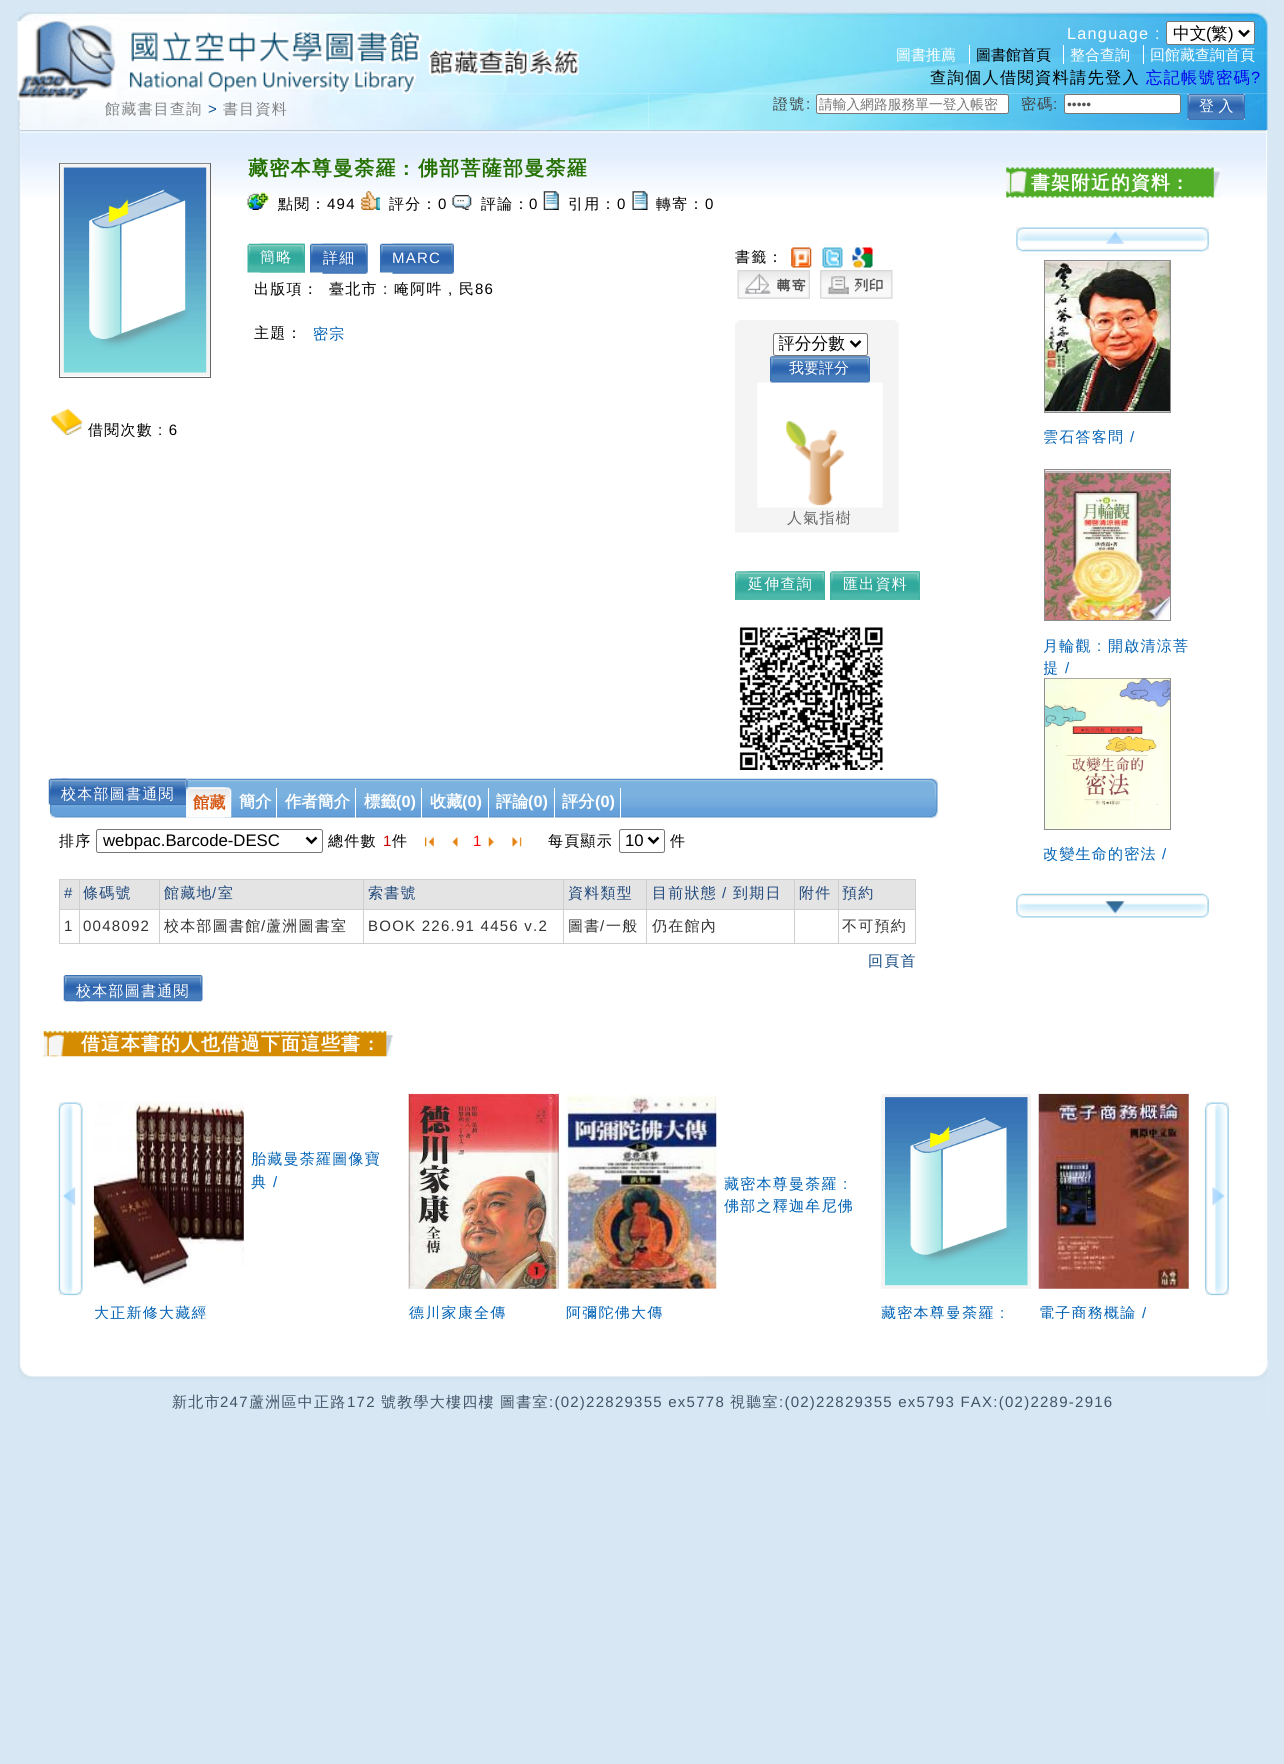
#include <cairo.h>
#include <math.h>
#include <stddef.h>

static cairo_t *c;
static void C(unsigned color){cairo_set_source_rgb(c, (color >> 16) / 255.0, (color >> 8 & 255) / 255.0, (color & 255) / 255.0);}
static void F(const char *family, double size, int italic, int bold){cairo_select_font_face(c, family, italic ? CAIRO_FONT_SLANT_ITALIC : CAIRO_FONT_SLANT_NORMAL,bold ? CAIRO_FONT_WEIGHT_BOLD : CAIRO_FONT_WEIGHT_NORMAL);cairo_set_font_size(c, size);}
static void T(double x, double y, const char *s){cairo_move_to(c, x, y);cairo_show_text(c, s);}
static void L(double x, double y, const char *s, double letter, double word){cairo_move_to(c, x, y);while (*s) {char ch[5] = {0};int n = 0;do ch[n++] = *s++; while ((*s & 0xC0) == 0x80);cairo_show_text(c, ch);cairo_rel_move_to(c, letter + word * (*ch == ' '), 0);}}
static void R(double x, double y, double w, double h){cairo_rectangle(c, x, y, w, h);cairo_fill(c);}
static void Q(double x, double y, double w, double h, double r){cairo_new_sub_path(c);cairo_arc(c, x + w - r, y + h - r, r, 0, M_PI / 2);cairo_arc(c, x + r, y + h - r, r, M_PI / 2, M_PI);cairo_arc(c, x + r, y + r, r, M_PI, 1.5 * M_PI);cairo_arc(c, x + w - r, y + r, r, 1.5 * M_PI, 2 * M_PI);cairo_close_path(c);}
static void I(const char *path, double x, double y, double w, double h){cairo_surface_t *image = cairo_image_surface_create_from_png(path);cairo_save(c);cairo_set_source_surface(c, image, x, y);cairo_rectangle(c, x, y, w, h);cairo_fill(c);cairo_restore(c);cairo_surface_destroy(image);}
int main(void) {
cairo_surface_t *surface = cairo_image_surface_create(CAIRO_FORMAT_RGB24, 1284, 1764);
c = cairo_create(surface);
cairo_font_options_t *options = cairo_font_options_create();
cairo_font_options_set_hint_metrics(options, CAIRO_HINT_METRICS_OFF);
cairo_font_options_set_hint_style(options, CAIRO_HINT_STYLE_NONE);
cairo_set_font_options(c, options);
cairo_set_miter_limit(c, 4);
C(0xd7e8f4);
cairo_paint(c);
I("1.png",18,0,1250,1420);
I("2.png",17,0,1251,94);
I("4.png",17,93,632,37);
I("3.png",17,21,562,80);
F("Liberation Sans",16.25,0,0);
C(0xffffff);
L(1067,39,"Language :",1.25,0);
Q(1166.5,21.5,88,23,2);
cairo_fill_preserve(c);
C(0x767676);
cairo_set_line_width(c,1);
cairo_stroke(c);
cairo_new_path(c);
cairo_move_to(c,1239,30.5);
cairo_line_to(c,1244,35.5);
cairo_line_to(c,1249,30.5);
C(0x000000);
cairo_set_line_width(c,2.5);
cairo_stroke(c);
F("WenQuanYi Zen Hei Medium",16.75,0,0);
T(1173,39,"中文");
F("Liberation Sans",16.75,0,0);
T(1206,39,"(");
F("WenQuanYi Zen Hei Medium",16.75,0,0);
T(1211,39,"繁");
F("Liberation Sans",16.75,0,0);
T(1228,39,")");
F("WenQuanYi Zen Hei Medium",15,0,0);
C(0xffffff);
T(896,60,"圖書推薦");
C(0x000000);
T(976,60,"圖書館首頁");
C(0xffffff);
R(969,45,1,19);
T(1070,60,"整合查詢");
R(1063,45,1,19);
T(1150,60,"回館藏查詢首頁");
R(1143,45,1,19);
F("WenQuanYi Zen Hei Medium",16.25,0,0);
C(0x000000);
L(930,83,"查詢個人借閱資料請先登入",1.25,0);
C(0x0000ee);
L(1146,83,"忘記帳號密碼",1.25,0);
F("Liberation Sans",16.25,0,0);
L(1251,83,"?",1.25,0);
C(0xffffff);
L(18,128,":",1.25,0);
F("WenQuanYi Zen Hei Medium",15,0,0);
C(0x818181);
L(105,114,"館藏書目查詢",1.25,0);
F("Liberation Sans",15,0,0);
C(0x0f4f8b);
L(208,114,">",1.25,0);
F("WenQuanYi Zen Hei Medium",15,0,0);
C(0x818181);
L(223,114,"書目資料",1.25,0);
I("5.png",648,93,620,37);
C(0x444444);
L(773,109,"證號",1.25,0);
F("Liberation Sans",15,0,0);
L(806,109,":",1.25,0);
C(0xffffff);
Q(816.5,94.5,192,19,2);
cairo_fill_preserve(c);
C(0x767676);
cairo_set_line_width(c,1);
cairo_stroke(c);
F("WenQuanYi Zen Hei Medium",13.75,0,0);
C(0x757575);
T(819,109,"請輸入網路服務單一登入帳密");
F("WenQuanYi Zen Hei Medium",15,0,0);
C(0x444444);
L(1021,109,"密碼",1.25,0);
F("Liberation Sans",15,0,0);
L(1053,109,":",1.25,0);
C(0xffffff);
Q(1064.5,94.5,116,19,2);
cairo_fill_preserve(c);
C(0x767676);
cairo_stroke(c);
F("Liberation Sans",13.75,0,0);
C(0x555555);
T(1067,109,"•••••");
I("6.png",1187,93,58,27);
F("WenQuanYi Zen Hei Medium",15,0,0);
C(0xffffff);
T(1199,111,"登 入");
I("7.png",20,130,1247,66);
cairo_rectangle(c,59.5,163.5,151,214);
C(0x666666);
cairo_stroke(c);
I("8.png",60,163,150,213);
I("9.png",51,408,32,27);
C(0x000000);
L(88,435,"借閱次數",1.25,0);
F("Liberation Sans",15,0,0);
L(158,435,": 6",1.25,0);
F("WenQuanYi Zen Hei",20,0,1);
C(0x237000);
L(248,175,"藏密本尊曼荼羅",1.25,0);
F("Liberation Sans",20,0,1);
L(403,175,":",1.25,0);
F("WenQuanYi Zen Hei",20,0,1);
L(418,175,"佛部菩薩部曼荼羅",1.25,0);
I("10.png",247,192,22,18);
F("WenQuanYi Zen Hei Medium",15,0,0);
C(0x000000);
L(278,209,"點閱：",1.25,0);
F("Liberation Sans",15,0,0);
L(327,209,"494",1.25,0);
I("11.png",361,191,19,19);
F("WenQuanYi Zen Hei Medium",15,0,0);
L(389,209,"評分：",1.25,0);
F("Liberation Sans",15,0,0);
L(438,209,"0",1.25,0);
I("12.png",452,195,20,15);
F("WenQuanYi Zen Hei Medium",15,0,0);
L(481,209,"評論：",1.25,0);
F("Liberation Sans",15,0,0);
L(529,209,"0",1.25,0);
I("13.png",543,191,16,19);
F("WenQuanYi Zen Hei Medium",15,0,0);
L(568,209,"引用：",1.25,0);
F("Liberation Sans",15,0,0);
L(617,209,"0",1.25,0);
I("14.png",632,191,16,19);
F("WenQuanYi Zen Hei Medium",15,0,0);
L(656,209,"轉寄：",1.25,0);
F("Liberation Sans",15,0,0);
L(705,209,"0",1.25,0);
I("15.png",247,243,58,30);
I("16.png",260,243,45,30);
F("WenQuanYi Zen Hei Medium",15,0,0);
C(0xffffff);
L(260,262,"簡略",1.25,0);
I("17.png",310,243,58,30);
I("18.png",322,243,46,31);
L(323,263,"詳細",1.25,0);
I("19.png",380,243,74,30);
I("20.png",392,243,62,31);
F("Liberation Sans",15,0,0);
L(392,263,"MARC",1.25,0);
F("WenQuanYi Zen Hei Medium",15,0,0);
C(0x000000);
L(254,294,"出版項：",1.25,0);
L(329,294,"臺北市",1.25,0);
F("Liberation Sans",15,0,0);
L(383,294,":",1.25,0);
F("WenQuanYi Zen Hei Medium",15,0,0);
L(394,294,"唵阿吽",1.25,0);
F("Liberation Sans",15,0,0);
L(448,294,",",1.25,0);
F("WenQuanYi Zen Hei Medium",15,0,0);
L(459,294,"民",1.25,0);
F("Liberation Sans",15,0,0);
L(475,294,"86",1.25,0);
F("WenQuanYi Zen Hei Medium",15,0,0);
L(254,338,"主題：",1.25,0);
C(0x0061b4);
L(313,339,"密宗",1.25,0);
C(0x000000);
L(735,262,"書籤：",1.25,0);
I("21.png",791,247,21,21);
I("22.png",822,247,21,21);
I("23.png",852,247,21,21);
I("24.png",737,270,73,29);
I("25.png",820,270,73,29);
I("26.png",735,320,164,213);
C(0xffffff);
Q(773.5,333.5,94,22,2);
cairo_fill_preserve(c);
C(0x767676);
cairo_stroke(c);
cairo_new_path(c);
cairo_move_to(c,850.5,341);
cairo_line_to(c,855.5,346);
cairo_line_to(c,860.5,341);
C(0x000000);
cairo_set_line_width(c,2.5);
cairo_stroke(c);
cairo_save(c);
cairo_rectangle(c,779,334,67,21);
cairo_clip(c);
F("WenQuanYi Zen Hei Medium",16.75,0,0);
T(778,349,"評分分數");
cairo_restore(c);
I("28.png",757,382,126,126);
I("27.png",770,356,100,27);
C(0xffffff);
T(789,373,"我要評分");
C(0x666666);
L(787,523,"人氣指樹",1.25,0);
I("29.png",735,571,90,29);
I("30.png",747,571,78,29);
C(0xffffff);
L(748,589,"延伸查詢",1.25,0);
I("31.png",830,571,90,29);
I("30.png",842,571,78,29);
L(843,589,"匯出資料",1.25,0);
I("32.png",739,627,144,143);
I("35.png",50,778,888,40);
I("33.png",48,778,22,27);
I("34.png",61,778,127,27);
L(61,799,"校本部圖書通閱",1.25,0);
I("36.png",186,787,46,31);
I("37.png",186,787,39,31);
F("WenQuanYi Zen Hei",16.25,0,1);
C(0xd55915);
T(193,808,"館藏");
C(0xffffff);
R(276,788,1,30);
T(239,807,"簡介");
R(355,788,1,30);
T(285,807,"作者簡介");
R(421,788,1,30);
T(364,807,"標籤");
F("Liberation Sans",16.25,0,1);
T(396,807,"(0)");
R(488,788,1,30);
F("WenQuanYi Zen Hei",16.25,0,1);
T(430,807,"收藏");
F("Liberation Sans",16.25,0,1);
T(462,807,"(0)");
R(554,788,1,30);
F("WenQuanYi Zen Hei",16.25,0,1);
T(496,807,"評論");
F("Liberation Sans",16.25,0,1);
T(528,807,"(0)");
R(620,788,1,30);
F("WenQuanYi Zen Hei",16.25,0,1);
T(562,807,"評分");
F("Liberation Sans",16.25,0,1);
T(595,807,"(0)");
F("WenQuanYi Zen Hei Medium",15,0,0);
C(0x000000);
L(59,846,"排序",1.25,0);
Q(96.5,829.5,226,23,2);
C(0x767676);
cairo_set_line_width(c,1);
cairo_stroke(c);
cairo_new_path(c);
cairo_move_to(c,306.5,837.5);
cairo_line_to(c,311.5,842.5);
cairo_line_to(c,316.5,837.5);
C(0x000000);
cairo_set_line_width(c,2.5);
cairo_stroke(c);
F("Liberation Sans",16.75,0,0);
T(103,846,"webpac.Barcode-DESC");
F("WenQuanYi Zen Hei Medium",15,0,0);
L(328,846,"總件數",1.25,0);
F("Liberation Sans",15,0,0);
C(0xcc0000);
L(383,846,"1",1.25,0);
F("WenQuanYi Zen Hei Medium",15,0,0);
C(0x000000);
L(392,846,"件",1.25,0);
I("38.png",425,837,9,10);
I("39.png",452,837,6,10);
F("Liberation Sans",15,0,0);
C(0xff0000);
L(473,846,"1",1.25,0);
I("40.png",488,837,6,10);
I("41.png",512,837,10,10);
F("WenQuanYi Zen Hei Medium",15,0,0);
C(0x000000);
L(548,846,"每頁顯示",1.25,0);
Q(619.5,829.5,45,23,2);
C(0x767676);
cairo_set_line_width(c,1);
cairo_stroke(c);
cairo_new_path(c);
cairo_move_to(c,648.5,837.5);
cairo_line_to(c,653.5,842.5);
cairo_line_to(c,658.5,837.5);
C(0x000000);
cairo_set_line_width(c,2.5);
cairo_stroke(c);
F("Liberation Sans",16.75,0,0);
T(625,846,"10");
F("WenQuanYi Zen Hei Medium",15,0,0);
L(670,846,"件",1.25,0);
C(0xcfcfcf);
R(59,879,857,1);
R(915,879,1,65);
R(59,879,1,65);
C(0xe4e4e4);
R(60,880,19,29);
R(564,880,230,29);
C(0xcfcfcf);
R(838,943,78,1);
R(838,909,1,35);
R(838,909,78,1);
R(838,879,1,31);
R(794,943,45,1);
R(794,909,1,35);
R(794,909,45,1);
R(794,879,1,31);
R(646,943,149,1);
R(646,909,1,35);
R(646,909,149,1);
R(646,879,1,31);
R(563,943,85,1);
R(563,909,1,35);
R(563,909,85,1);
R(563,879,1,31);
R(363,943,201,1);
R(363,909,1,35);
R(363,909,201,1);
R(363,879,1,31);
R(159,943,205,1);
R(159,909,1,35);
R(159,909,205,1);
R(159,879,1,31);
R(79,943,81,1);
R(79,909,1,35);
R(79,909,81,1);
R(79,879,1,31);
R(59,909,21,1);
F("Liberation Sans",15,0,0);
C(0x20487b);
L(64,898,"#",1.25,0);
C(0xe4e4e4);
R(80,880,79,29);
F("WenQuanYi Zen Hei Medium",15,0,0);
C(0x20487b);
L(83,898,"條碼號",1.25,0);
C(0xe4e4e4);
R(160,880,203,29);
C(0x20487b);
L(164,898,"館藏地",1.25,0);
F("Liberation Sans",15,0,0);
L(212,898,"/",1.25,0);
F("WenQuanYi Zen Hei Medium",15,0,0);
L(218,898,"室",1.25,0);
C(0xe4e4e4);
R(364,880,199,29);
C(0x20487b);
L(368,898,"索書號",1.25,0);
L(568,898,"資料類型",1.25,0);
L(652,898,"目前狀態",1.25,0);
F("Liberation Sans",15,0,0);
L(722,898,"/",1.25,0);
F("WenQuanYi Zen Hei Medium",15,0,0);
L(733,898,"到期日",1.25,0);
C(0xe4e4e4);
R(795,880,43,29);
C(0x20487b);
L(799,898,"附件",1.25,0);
C(0xe4e4e4);
R(839,880,76,29);
C(0x20487b);
L(842,898,"預約",1.25,0);
C(0xcfcfcf);
R(59,943,21,1);
F("Liberation Sans",15,0,0);
C(0x333333);
L(64,931,"1",1.25,0);
L(83,931,"0048092",1.25,0);
F("WenQuanYi Zen Hei Medium",15,0,0);
L(164,931,"校本部圖書館",1.25,0);
F("Liberation Sans",15,0,0);
L(261,931,"/",1.25,0);
F("WenQuanYi Zen Hei Medium",15,0,0);
L(266,931,"蘆洲圖書室",1.25,0);
F("Liberation Sans",15,0,0);
L(368,931,"BOOK 226.91 4456 v.2",1.25,0);
F("WenQuanYi Zen Hei Medium",15,0,0);
L(568,931,"圖書",1.25,0);
F("Liberation Sans",15,0,0);
L(600,931,"/",1.25,0);
F("WenQuanYi Zen Hei Medium",15,0,0);
L(606,931,"一般",1.25,0);
L(652,931,"仍在館內",1.25,0);
L(842,931,"不可預約",1.25,0);
C(0x14497f);
L(868,966,"回頁首",1.25,0);
I("42.png",63,975,22,27);
I("43.png",76,975,127,27);
C(0xffffff);
L(76,996,"校本部圖書通閱",1.25,0);
I("44.png",1006,167,215,31);
F("WenQuanYi Zen Hei",18.75,0,1);
L(1031,189,"書架附近的資料",1.25,0);
F("Liberation Sans",18.75,0,1);
L(1177,189,":",1.25,0);
I("45.png",1016,227,193,25);
cairo_rectangle(c,1044.5,260.5,126,152);
C(0x8d8d8d);
cairo_set_line_width(c,1);
cairo_stroke(c);
I("46.png",1045,261,125,151);
F("WenQuanYi Zen Hei Medium",15,0,0);
C(0x0061b4);
L(1043,442,"雲石答客問",1.25,0);
F("Liberation Sans",15,0,0);
L(1130,442,"/",1.25,0);
cairo_rectangle(c,1044.5,469.5,126,151);
C(0x8d8d8d);
cairo_stroke(c);
I("47.png",1045,470,125,150);
F("WenQuanYi Zen Hei Medium",15,0,0);
C(0x0061b4);
L(1043,651,"月輪觀",1.25,0);
F("Liberation Sans",15,0,0);
L(1097,651,":",1.25,0);
F("WenQuanYi Zen Hei Medium",15,0,0);
L(1108,651,"開啟清涼菩",1.25,0);
cairo_save(c);
cairo_rectangle(c,1044,260,150,625);
cairo_clip(c);
L(1043,673,"提",1.25,0);
cairo_restore(c);
F("Liberation Sans",15,0,0);
L(1065,673,"/",1.25,0);
cairo_rectangle(c,1044.5,678.5,126,151);
C(0x8d8d8d);
cairo_stroke(c);
I("48.png",1045,678,125,151);
F("WenQuanYi Zen Hei Medium",15,0,0);
C(0x0061b4);
L(1043,859,"改變生命的密法",1.25,0);
F("Liberation Sans",15,0,0);
L(1162,859,"/",1.25,0);
I("49.png",1016,893,193,25);
I("50.png",43,1031,350,26);
F("WenQuanYi Zen Hei",18.75,0,1);
C(0xffffff);
L(81,1050,"借這本書的人也借過下面這些書",1.25,0);
F("Liberation Sans",18.75,0,1);
L(368,1050,":",1.25,0);
I("51.png",58,1102,25,194);
F("WenQuanYi Zen Hei Medium",15,0,0);
C(0x0061b4);
L(251,1164,"胎藏曼荼羅圖像寶",1.25,0);
L(251,1187,"典",1.25,0);
F("Liberation Sans",15,0,0);
L(273,1187,"/",1.25,0);
F("WenQuanYi Zen Hei Medium",15,0,0);
L(724,1189,"藏密本尊曼荼羅",1.25,0);
F("Liberation Sans",15,0,0);
L(843,1189,":",1.25,0);
F("WenQuanYi Zen Hei Medium",15,0,0);
L(724,1211,"佛部之釋迦牟尼佛",1.25,0);
I("52.png",93,1101,151,187);
cairo_save(c);
cairo_rectangle(c,94,1094,1100,225);
cairo_clip(c);
L(94,1318,"大正新修大藏經",1.25,0);
cairo_restore(c);
I("53.png",408,1093,151,196);
cairo_save(c);
cairo_rectangle(c,94,1094,1100,225);
cairo_clip(c);
L(409,1318,"德川家康全傳",1.25,0);
cairo_restore(c);
I("54.png",566,1094,151,195);
cairo_save(c);
cairo_rectangle(c,94,1094,1100,225);
cairo_clip(c);
L(566,1318,"阿彌陀佛大傳",1.25,0);
cairo_restore(c);
I("55.png",881,1094,150,195);
cairo_save(c);
cairo_rectangle(c,94,1094,1100,225);
cairo_clip(c);
L(881,1318,"藏密本尊曼荼羅",1.25,0);
cairo_restore(c);
F("Liberation Sans",15,0,0);
L(1000,1318,":",1.25,0);
I("56.png",1038,1093,151,196);
cairo_save(c);
cairo_rectangle(c,94,1094,1100,225);
cairo_clip(c);
F("WenQuanYi Zen Hei Medium",15,0,0);
L(1039,1318,"電子商務概論",1.25,0);
cairo_restore(c);
L(1142,1318,"/",1.25,0);
I("57.png",1204,1102,25,194);
I("58.png",18,1360,1250,60);
F("WenQuanYi Zen Hei Medium",15,0,0);
C(0x425267);
L(172,1407,"新北市",1.25,0);
F("Liberation Sans",15,0,0);
L(220,1407,"247",1.25,0);
F("WenQuanYi Zen Hei Medium",15,0,0);
L(249,1407,"蘆洲區中正路",1.25,0);
F("Liberation Sans",15,0,0);
L(347,1407,"172",1.25,0);
F("WenQuanYi Zen Hei Medium",15,0,0);
L(381,1407,"號教學大樓四樓",1.25,0);
L(500,1407,"圖書室",1.25,0);
F("Liberation Sans",15,0,0);
L(549,1407,":(02)22829355 ex5778",1.25,0);
F("WenQuanYi Zen Hei Medium",15,0,0);
L(730,1407,"視聽室",1.25,0);
F("Liberation Sans",15,0,0);
L(779,1407,":(02)22829355 ex5793 FAX:(02)2289-2916",1.25,0);
cairo_surface_write_to_png(surface, "o.png");
cairo_font_options_destroy(options);
cairo_destroy(c);
cairo_surface_destroy(surface);
return 0;
}
